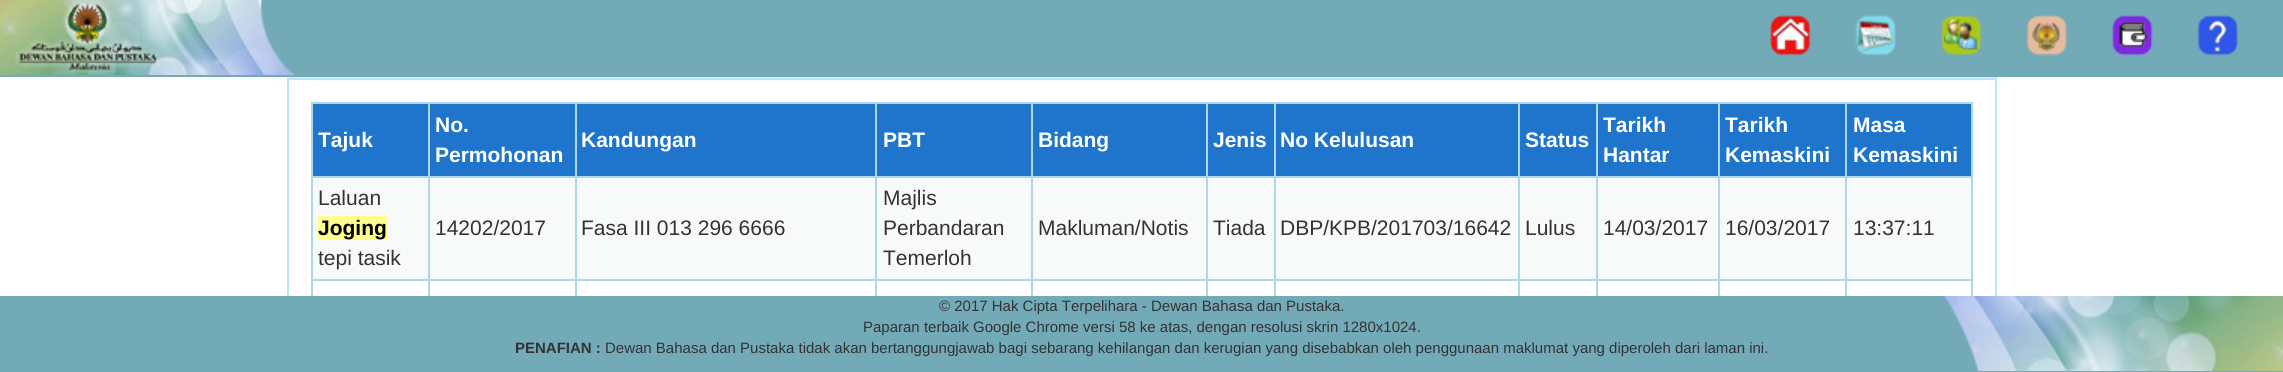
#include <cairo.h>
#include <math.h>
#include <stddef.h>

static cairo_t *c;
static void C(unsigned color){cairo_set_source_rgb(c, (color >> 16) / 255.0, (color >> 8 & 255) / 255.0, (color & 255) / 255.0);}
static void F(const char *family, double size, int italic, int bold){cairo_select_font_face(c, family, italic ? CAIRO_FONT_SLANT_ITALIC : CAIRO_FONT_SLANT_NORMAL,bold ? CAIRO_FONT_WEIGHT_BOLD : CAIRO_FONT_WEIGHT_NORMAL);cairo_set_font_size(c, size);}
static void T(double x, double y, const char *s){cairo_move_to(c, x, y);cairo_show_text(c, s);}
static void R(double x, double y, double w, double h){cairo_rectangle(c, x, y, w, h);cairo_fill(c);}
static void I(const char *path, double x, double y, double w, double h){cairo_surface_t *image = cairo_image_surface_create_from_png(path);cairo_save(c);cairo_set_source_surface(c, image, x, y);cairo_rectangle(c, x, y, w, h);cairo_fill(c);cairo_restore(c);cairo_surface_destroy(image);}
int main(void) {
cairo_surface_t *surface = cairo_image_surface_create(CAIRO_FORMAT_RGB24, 2283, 372);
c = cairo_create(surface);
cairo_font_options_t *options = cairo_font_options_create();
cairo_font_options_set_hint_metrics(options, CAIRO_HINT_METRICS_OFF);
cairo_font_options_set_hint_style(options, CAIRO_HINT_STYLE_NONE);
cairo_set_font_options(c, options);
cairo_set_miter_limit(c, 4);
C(0xffffff);
cairo_paint(c);
cairo_rectangle(c,288,21,1708,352);
C(0xbce8f1);
cairo_stroke(c);
C(0x73aab7);
R(0,0,2283,77);
I("1.png",0,0,295,75);
I("2.png",1770,15,41,41);
I("3.png",1855,15,41,41);
I("4.png",1941,15,41,41);
I("5.png",2026,15,41,41);
I("6.png",2112,15,41,41);
I("7.png",2197,15,41,41);
C(0xd9edf7);
R(288,77,1707,1);
C(0xbce8f1);
R(288,78,1707,2);
C(0xadd8e6);
R(311,102,1662,2);
R(1971,102,2,194);
R(311,102,2,194);
C(0x1f75cc);
R(313,104,1658,72);
F("Liberation Sans",21,0,1);
C(0xffffff);
T(318,147,"Tajuk");
C(0xadd8e6);
R(1845,176,128,2);
C(0xf8f9f9);
R(313,178,1658,101);
C(0xadd8e6);
R(1845,279,128,2);
R(1845,279,2,17);
R(1718,279,129,2);
R(1845,176,2,105);
R(1718,176,129,2);
R(1718,279,2,17);
R(1596,279,123,2);
R(1718,176,2,105);
R(1596,176,123,2);
R(1596,279,2,17);
R(1518,279,80,2);
R(1596,176,2,105);
R(1518,176,80,2);
R(1518,279,2,17);
R(1274,279,246,2);
R(1518,176,2,105);
R(1274,176,246,2);
R(1274,279,2,17);
R(1206,279,69,2);
R(1274,176,2,105);
R(1206,176,69,2);
R(1206,279,2,17);
R(1031,279,177,2);
R(1206,176,2,105);
R(1031,176,177,2);
R(1031,279,2,17);
R(875,279,157,2);
R(1031,176,2,105);
R(875,176,157,2);
R(875,279,2,17);
R(575,279,301,2);
R(875,176,2,105);
R(575,176,301,2);
R(575,279,2,17);
R(428,279,148,2);
R(575,176,2,105);
R(428,176,148,2);
R(428,279,2,17);
R(311,279,118,2);
R(428,176,2,105);
R(311,176,118,2);
R(428,102,2,75);
C(0xffffff);
T(435,132,"No.");
T(435,162,"Permohonan");
C(0xadd8e6);
R(575,102,2,75);
C(0xffffff);
T(581,147,"Kandungan");
C(0xadd8e6);
R(875,102,2,75);
C(0xffffff);
T(883,147,"PBT");
C(0xadd8e6);
R(1031,102,2,75);
C(0xffffff);
T(1038,147,"Bidang");
C(0xadd8e6);
R(1206,102,2,75);
C(0xffffff);
T(1213,147,"Jenis");
C(0xadd8e6);
R(1274,102,2,75);
C(0xffffff);
T(1280,147,"No Kelulusan");
C(0xadd8e6);
R(1518,102,2,75);
C(0xffffff);
T(1525,147,"Status");
C(0xadd8e6);
R(1596,102,2,75);
C(0xffffff);
T(1603,132,"Tarikh");
T(1603,162,"Hantar");
C(0xadd8e6);
R(1718,102,2,75);
C(0xffffff);
T(1725,132,"Tarikh");
T(1725,162,"Kemaskini");
C(0xadd8e6);
R(1845,102,2,75);
C(0xffffff);
T(1853,132,"Masa");
T(1853,162,"Kemaskini");
F("Liberation Sans",21,0,0);
C(0x333333);
T(318,205,"Laluan");
C(0xfeff8d);
R(318,216,69,24);
F("Liberation Sans",21,0,1);
C(0x000000);
T(318,235,"Joging");
F("Liberation Sans",21,0,0);
C(0x333333);
T(318,265,"tepi tasik");
T(435,235,"14202/2017");
T(581,235,"Fasa III 013 296 6666");
T(883,205,"Majlis");
T(883,235,"Perbandaran");
T(883,265,"Temerloh");
T(1038,235,"Makluman/Notis");
T(1213,235,"Tiada");
T(1280,235,"DBP/KPB/201703/16642");
T(1525,235,"Lulus");
T(1603,235,"14/03/2017");
T(1725,235,"16/03/2017");
T(1853,235,"13:37:11");
C(0x73aab7);
R(0,296,2283,76);
I("8.png",1943,296,340,75);
F("Liberation Sans",15,0,0);
C(0x333333);
T(939,311,"© 2017 Hak Cipta Terpelihara - Dewan Bahasa dan Pustaka.");
T(863,332,"Paparan terbaik Google Chrome versi 58 ke atas, dengan resolusi skrin 1280x1024.");
F("Liberation Sans",15,0,1);
T(515,353,"PENAFIAN :");
F("Liberation Sans",15,0,0);
T(605,353,"Dewan Bahasa dan Pustaka tidak akan bertanggungjawab bagi sebarang kehilangan dan kerugian yang disebabkan oleh penggunaan maklumat yang diperoleh dari laman ini.");
cairo_surface_write_to_png(surface, "o.png");
cairo_font_options_destroy(options);
cairo_destroy(c);
cairo_surface_destroy(surface);
return 0;
}
